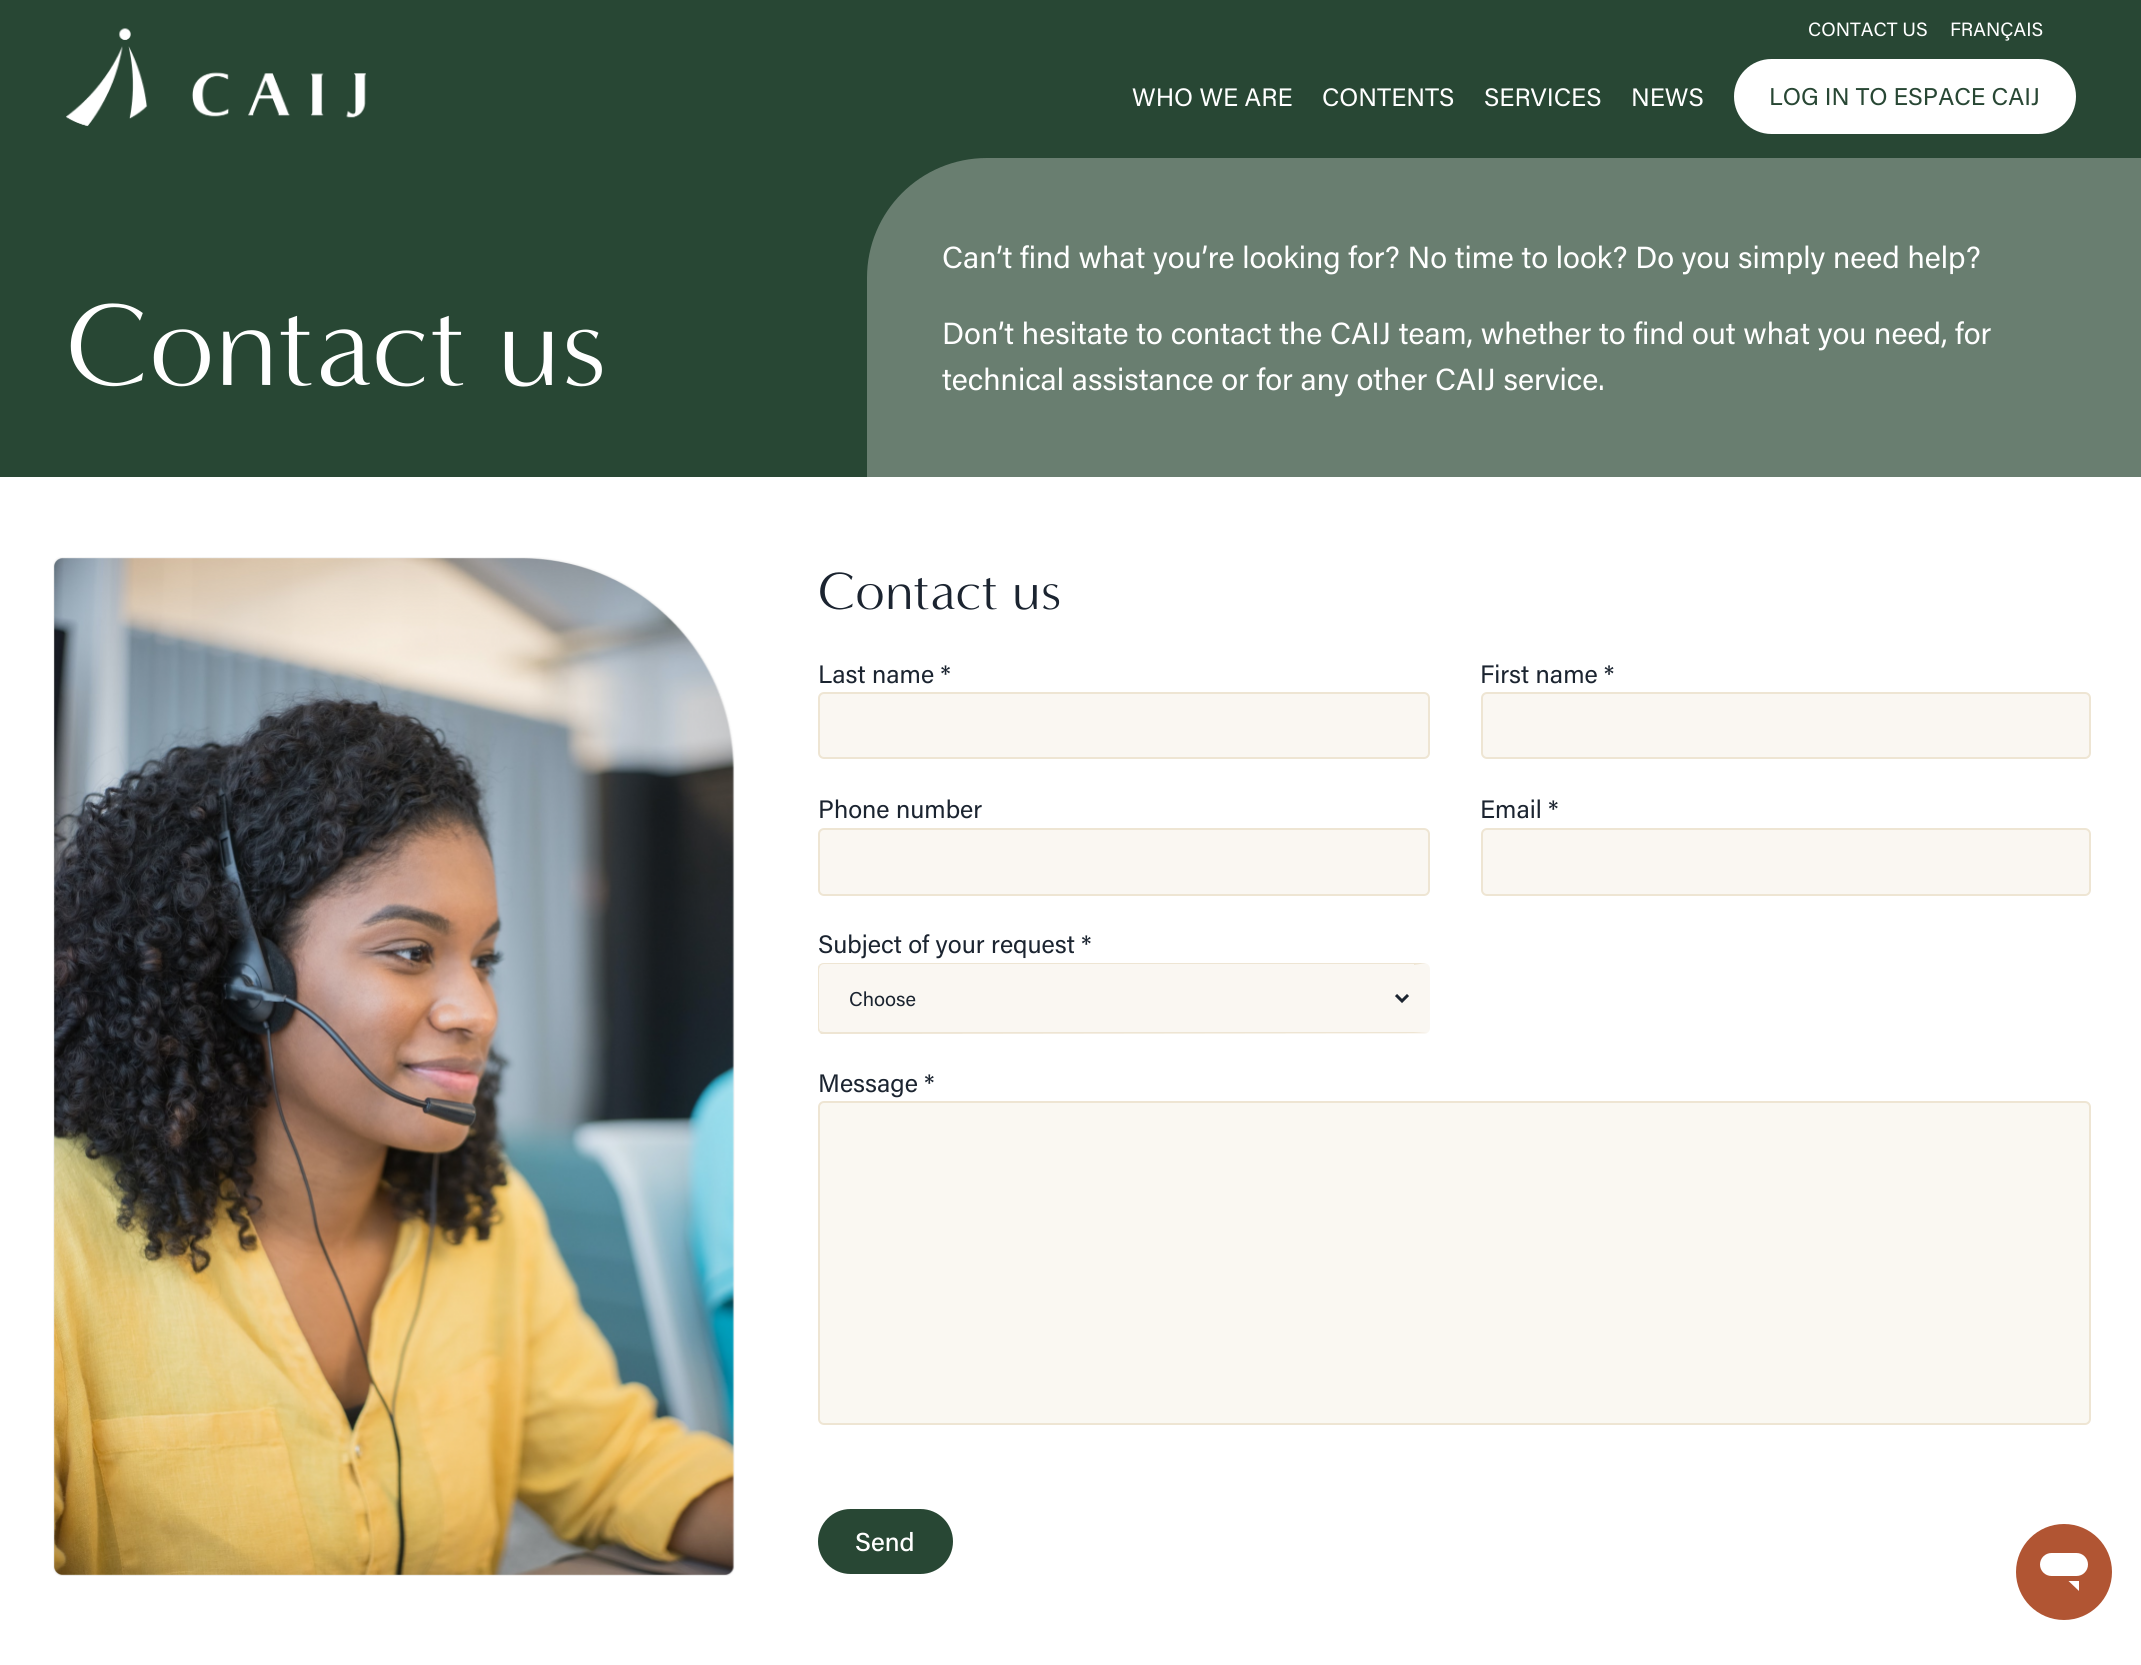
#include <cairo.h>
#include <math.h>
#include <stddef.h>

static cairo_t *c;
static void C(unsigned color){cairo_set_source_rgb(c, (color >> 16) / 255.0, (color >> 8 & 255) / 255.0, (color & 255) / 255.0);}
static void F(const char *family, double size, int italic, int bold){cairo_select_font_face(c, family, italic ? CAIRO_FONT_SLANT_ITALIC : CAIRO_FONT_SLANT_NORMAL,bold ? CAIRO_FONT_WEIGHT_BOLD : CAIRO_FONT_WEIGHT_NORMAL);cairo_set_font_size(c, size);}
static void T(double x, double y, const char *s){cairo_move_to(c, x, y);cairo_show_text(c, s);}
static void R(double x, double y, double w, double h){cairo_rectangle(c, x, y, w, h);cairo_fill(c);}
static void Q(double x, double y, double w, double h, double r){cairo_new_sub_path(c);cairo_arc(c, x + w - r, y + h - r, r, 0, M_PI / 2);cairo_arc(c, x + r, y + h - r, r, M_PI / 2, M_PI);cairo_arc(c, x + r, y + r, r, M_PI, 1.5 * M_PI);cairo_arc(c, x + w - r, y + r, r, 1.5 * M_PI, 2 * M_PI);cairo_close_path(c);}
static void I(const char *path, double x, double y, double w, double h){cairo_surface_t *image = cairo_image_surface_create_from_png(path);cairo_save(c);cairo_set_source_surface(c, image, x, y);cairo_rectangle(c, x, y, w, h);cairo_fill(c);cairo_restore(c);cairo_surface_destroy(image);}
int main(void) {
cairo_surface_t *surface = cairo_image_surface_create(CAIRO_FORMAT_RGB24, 2141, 1665);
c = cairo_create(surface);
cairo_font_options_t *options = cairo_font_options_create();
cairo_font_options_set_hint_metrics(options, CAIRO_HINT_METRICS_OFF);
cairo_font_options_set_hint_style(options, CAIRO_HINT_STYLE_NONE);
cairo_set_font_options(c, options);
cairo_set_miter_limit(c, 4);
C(0xffffff);
cairo_paint(c);
C(0x284734);
R(0,0,2141,158);
I("1.png",66,28,300,98);
F("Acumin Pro",19.25,0,0);
C(0xffffff);
T(1808,36,"CONTACT US");
T(1950,36,"FRANÇAIS");
F("Acumin Pro",25.25,0,0);
T(1132,106,"WHO WE ARE");
T(1322,106,"CONTENTS");
T(1484,106,"SERVICES");
T(1631,106,"NEWS");
Q(1734,59,342,75,37.5);
cairo_fill(c);
F("Acumin Pro",24.3,0,0);
C(0x284734);
T(1769,105,"LOG IN TO ESPACE CAIJ");
R(0,158,986,319);
F("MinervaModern",120,0,0);
C(0xffffff);
T(66,385,"Contact us");
C(0x697e70);
cairo_new_path(c);
cairo_move_to(c,987,158);
cairo_line_to(c,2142,158);
cairo_line_to(c,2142,477);
cairo_line_to(c,867,477);
cairo_line_to(c,867,278);
cairo_curve_to(c,867,211.5,920.5,158,987,158);
cairo_close_path(c);
cairo_fill(c);
F("Acumin Pro",30.6,0,0);
C(0xffffff);
T(942,268,"Can’t find what you’re looking for? No time to look? Do you simply need help?");
T(942,344,"Don’t hesitate to contact the CAIJ team, whether to find out what you need, for");
T(942,390,"technical assistance or for any other CAIJ service.");
I("2.png",53,557,682,1019);
F("MinervaModern",54,0,0);
C(0x1b2430);
T(818,609,"Contact us");
F("Acumin Pro",25.25,0,0);
T(818,683,"Last name *");
C(0xfaf7f2);
Q(819,693,610,65,5);
cairo_fill_preserve(c);
C(0xeee5d3);
cairo_stroke(c);
C(0x1b2430);
T(1480,683,"First name *");
C(0xfaf7f2);
Q(1482,693,608,65,5);
cairo_fill_preserve(c);
C(0xeee5d3);
cairo_stroke(c);
C(0x1b2430);
T(818,818,"Phone number");
C(0xfaf7f2);
Q(819,829,610,66,5);
cairo_fill_preserve(c);
C(0xeee5d3);
cairo_stroke(c);
C(0x1b2430);
T(1480,818,"Email *");
C(0xfaf7f2);
Q(1482,829,608,66,5);
cairo_fill_preserve(c);
C(0xeee5d3);
cairo_stroke(c);
C(0x1b2430);
T(818,953,"Subject of your request *");
C(0xfaf7f2);
Q(818,963,612,71,6);
cairo_fill(c);
C(0xeee5d3);
cairo_new_path(c);
cairo_move_to(c,824,963);
cairo_curve_to(c,822,963,820,964,819,965);
cairo_line_to(c,820,966);
cairo_curve_to(c,821,965,822,964,824,964);
cairo_line_to(c,1414,964);
cairo_line_to(c,1414,965);
cairo_line_to(c,1426,963);
cairo_line_to(c,1424,963);
cairo_close_path(c);
cairo_fill(c);
cairo_new_path(c);
cairo_move_to(c,821,1034);
cairo_line_to(c,819,1032);
cairo_line_to(c,820,1031);
cairo_curve_to(c,821,1031,822,1032,824,1032);
cairo_line_to(c,1414,1032);
cairo_line_to(c,1427,1033);
cairo_close_path(c);
cairo_fill(c);
cairo_new_path(c);
cairo_move_to(c,819,965);
cairo_curve_to(c,818,966,818,968,818,969);
cairo_line_to(c,818,1028);
cairo_curve_to(c,818,1029,818,1031,819,1032);
cairo_line_to(c,820,1031);
cairo_line_to(c,819,1028);
cairo_line_to(c,819,969);
cairo_line_to(c,820,966);
cairo_close_path(c);
cairo_fill(c);
cairo_new_path(c);
cairo_move_to(c,1396,995);
cairo_line_to(c,1402,1001);
cairo_line_to(c,1408,995);
C(0x1b2430);
cairo_set_line_width(c,3);
cairo_stroke(c);
F("Acumin Pro",20,0,0);
T(849,1006,"Choose");
F("Acumin Pro",25.25,0,0);
T(818,1092,"Message *");
C(0xfaf8f2);
Q(819,1102,1271,322,5);
cairo_fill_preserve(c);
C(0xeee5d3);
cairo_set_line_width(c,2);
cairo_stroke(c);
C(0x284734);
Q(818,1509,135,65,32.5);
cairo_fill(c);
F("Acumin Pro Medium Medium",26,0,0);
C(0xffffff);
T(855,1551,"Send");
C(0xb15533);
cairo_new_path(c);
cairo_arc(c,2064,1572,48,0,2 * M_PI);
cairo_fill(c);
C(0xffffff);
Q(2040,1553,48,23,11.5);
cairo_fill(c);
cairo_new_path(c);
cairo_move_to(c,2079,1591);
cairo_line_to(c,2068.5,1581);
cairo_line_to(c,2079,1581);
cairo_close_path(c);
cairo_fill(c);
cairo_surface_write_to_png(surface, "o.png");
cairo_font_options_destroy(options);
cairo_destroy(c);
cairo_surface_destroy(surface);
return 0;
}
